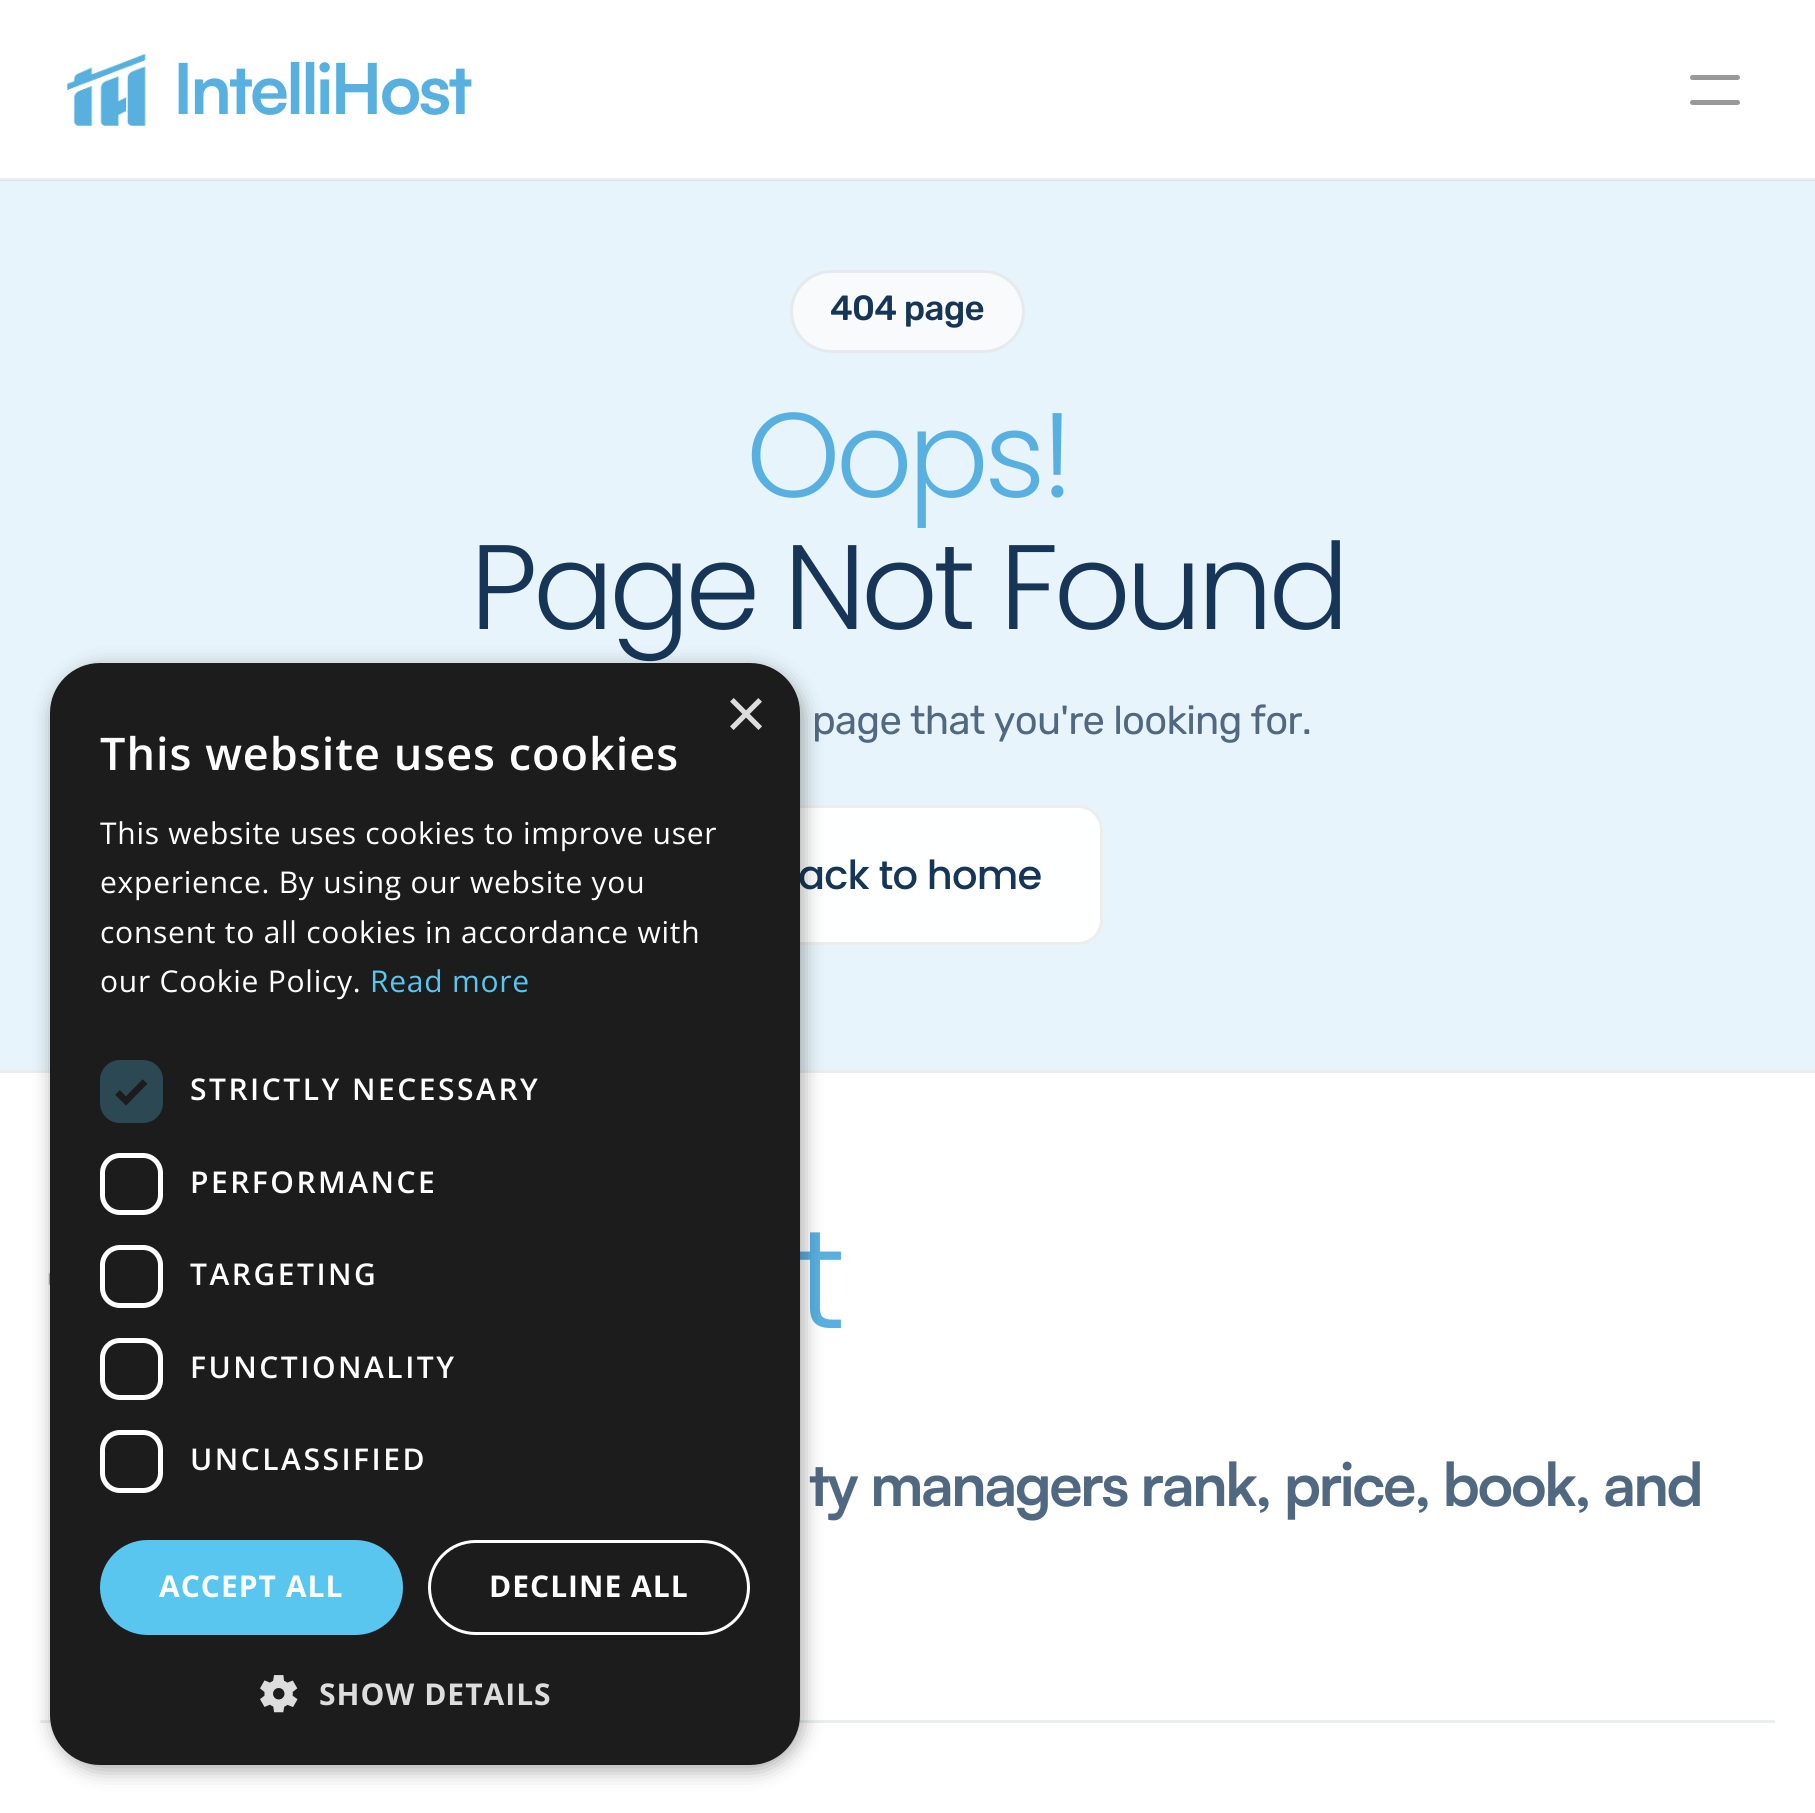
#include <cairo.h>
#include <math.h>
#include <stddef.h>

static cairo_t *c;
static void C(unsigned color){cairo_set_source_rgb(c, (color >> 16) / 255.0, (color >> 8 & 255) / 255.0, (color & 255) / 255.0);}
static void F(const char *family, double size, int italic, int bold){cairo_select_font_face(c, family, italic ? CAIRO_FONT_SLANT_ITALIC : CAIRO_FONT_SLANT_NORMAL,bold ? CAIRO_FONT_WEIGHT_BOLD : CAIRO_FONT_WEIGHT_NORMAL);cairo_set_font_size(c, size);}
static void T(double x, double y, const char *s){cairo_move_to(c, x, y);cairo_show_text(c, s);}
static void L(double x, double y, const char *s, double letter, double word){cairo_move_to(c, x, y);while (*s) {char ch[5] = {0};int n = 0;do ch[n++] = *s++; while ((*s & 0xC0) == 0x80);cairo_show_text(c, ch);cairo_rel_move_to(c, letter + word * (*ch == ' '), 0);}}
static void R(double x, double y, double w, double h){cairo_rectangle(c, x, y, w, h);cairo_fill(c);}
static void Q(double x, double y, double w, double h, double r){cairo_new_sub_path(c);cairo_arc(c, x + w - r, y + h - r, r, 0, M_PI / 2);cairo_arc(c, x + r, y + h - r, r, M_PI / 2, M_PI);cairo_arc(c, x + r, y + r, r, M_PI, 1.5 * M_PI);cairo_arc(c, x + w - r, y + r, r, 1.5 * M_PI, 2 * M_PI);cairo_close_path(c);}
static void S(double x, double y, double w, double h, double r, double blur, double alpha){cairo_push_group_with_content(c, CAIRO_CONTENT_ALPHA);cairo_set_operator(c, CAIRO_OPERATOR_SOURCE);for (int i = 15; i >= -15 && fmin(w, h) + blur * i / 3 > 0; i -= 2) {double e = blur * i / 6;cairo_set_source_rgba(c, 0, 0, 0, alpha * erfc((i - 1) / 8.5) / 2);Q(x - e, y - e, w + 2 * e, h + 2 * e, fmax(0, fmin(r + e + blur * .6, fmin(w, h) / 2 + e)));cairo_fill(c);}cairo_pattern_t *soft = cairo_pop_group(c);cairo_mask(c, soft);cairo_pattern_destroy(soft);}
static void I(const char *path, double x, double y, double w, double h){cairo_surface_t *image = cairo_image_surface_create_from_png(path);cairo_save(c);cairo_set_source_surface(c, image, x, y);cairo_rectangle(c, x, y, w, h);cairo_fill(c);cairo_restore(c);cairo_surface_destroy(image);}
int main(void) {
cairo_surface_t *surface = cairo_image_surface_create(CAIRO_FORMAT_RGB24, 1815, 1813);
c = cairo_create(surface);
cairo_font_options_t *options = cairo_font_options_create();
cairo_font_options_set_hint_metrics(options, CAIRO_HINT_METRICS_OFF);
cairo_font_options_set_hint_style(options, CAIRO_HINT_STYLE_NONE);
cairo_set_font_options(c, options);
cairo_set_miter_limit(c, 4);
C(0xffffff);
cairo_paint(c);
I("1.png",66,53,80,73);
F("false",70,0,1);
C(0x58b0e0);
L(173,114,"IntelliHost",-2.75,0);
C(0x999999);
Q(1690,75,50,5,2.5);
cairo_fill(c);
Q(1690,100,50,5,2.5);
cairo_fill(c);
C(0xeceeed);
R(0,178,1815,2);
C(0xe7f4fb);
R(0,181,1815,889);
C(0xd6e4e9);
R(0,180,1815,1);
C(0xf9fafb);
Q(790,270,235,83,41.5);
cairo_fill(c);
Q(791.5,271.5,232,80,40);
cairo_set_source_rgba(c,0.09,0.212,0.341,0.08);
cairo_set_line_width(c,3);
cairo_stroke(c);
F("Rubik Medium",35,0,0);
C(0x173657);
L(830,320,"404 page",-.75,0);
F("Poppins Light",120,0,0);
C(0x58b0e0);
L(746,497,"Oops!",-4.75,0);
C(0x173657);
L(470,629,"Page Not Found",-4.75,0);
F("Rubik",40,0,0);
C(0x516881);
L(812,734,"page that you're looking for.",-.8,0);
C(0xfeffff);
Q(713,805,390,140,25);
cairo_fill(c);
Q(714.5,806.5,387,137,23.5);
cairo_set_source_rgba(c,0.078,0.165,0.129,0.08);
cairo_stroke(c);
F("Poppins Medium",40,0,0);
C(0x173657);
L(798,889,"ack to home",-.8,0);
C(0xeceeed);
R(0,1070,1815,3);
I("2.png",48,1272,2,14);
F("Poppins Light",140,0,0);
C(0x58b0e0);
L(796,1328,"t",-6,0);
F("false",60,0,1);
C(0x516881);
L(809,1506,"ty managers rank, price, book, and",-2.4,0);
C(0xeceeed);
R(40,1720,1735,3);
C(0x000000);
S(53,668,750,1102,50,10,.35);
C(0x1c1c1c);
Q(50,663,750,1102,50);
cairo_fill(c);
F("Liberation Sans",72,0,0);
C(0xdddddd);
T(725,738,"×");
F("Open Sans SemiBold",45,0,0);
C(0xffffff);
L(100,770,"This website uses cookies",1,0);
F("Open Sans",30,0,0);
L(100,844,"This website uses cookies to improve user",.75,0);
L(100,893,"experience. By using our website you",.75,0);
L(100,943,"consent to all cookies in accordance with",.75,0);
L(100,992,"our Cookie Policy.",.75,0);
C(0x58c6ef);
L(370,992,"Read more",.75,0);
C(0x2c4853);
Q(100,1060,63,63,20);
cairo_fill(c);
cairo_new_path(c);
cairo_move_to(c,117.5,1092.5);
cairo_line_to(c,126,1101);
cairo_line_to(c,145,1081.5);
C(0x1c1c1c);
cairo_set_line_width(c,6.6);
cairo_stroke(c);
F("Open Sans SemiBold",30,0,0);
C(0xffffff);
L(190,1100,"STRICTLY NECESSARY",2.5,0);
Q(102.5,1155.5,58,57,17.5);
cairo_set_line_width(c,5);
cairo_stroke(c);
L(190,1193,"PERFORMANCE",2.5,0);
Q(102.5,1247.5,58,58,17.5);
cairo_stroke(c);
L(190,1285,"TARGETING",2.5,0);
Q(102.5,1340.5,58,57,17.5);
cairo_stroke(c);
L(190,1378,"FUNCTIONALITY",2.5,0);
Q(102.5,1432.5,58,58,17.5);
cairo_stroke(c);
L(190,1470,"UNCLASSIFIED",2.5,0);
C(0x58c6ef);
Q(100,1540,303,95,47.5);
cairo_fill(c);
F("Open Sans",30,0,1);
C(0xffffff);
L(159,1597,"ACCEPT ALL",1,0);
Q(429.5,1541.5,319,92,46);
cairo_set_line_width(c,3);
cairo_stroke(c);
L(489,1597,"DECLINE ALL",1,0);
I("3.png",260,1675,38,38);
C(0xdddddd);
L(319,1705,"SHOW DETAILS",1,0);
cairo_surface_write_to_png(surface, "o.png");
cairo_font_options_destroy(options);
cairo_destroy(c);
cairo_surface_destroy(surface);
return 0;
}
